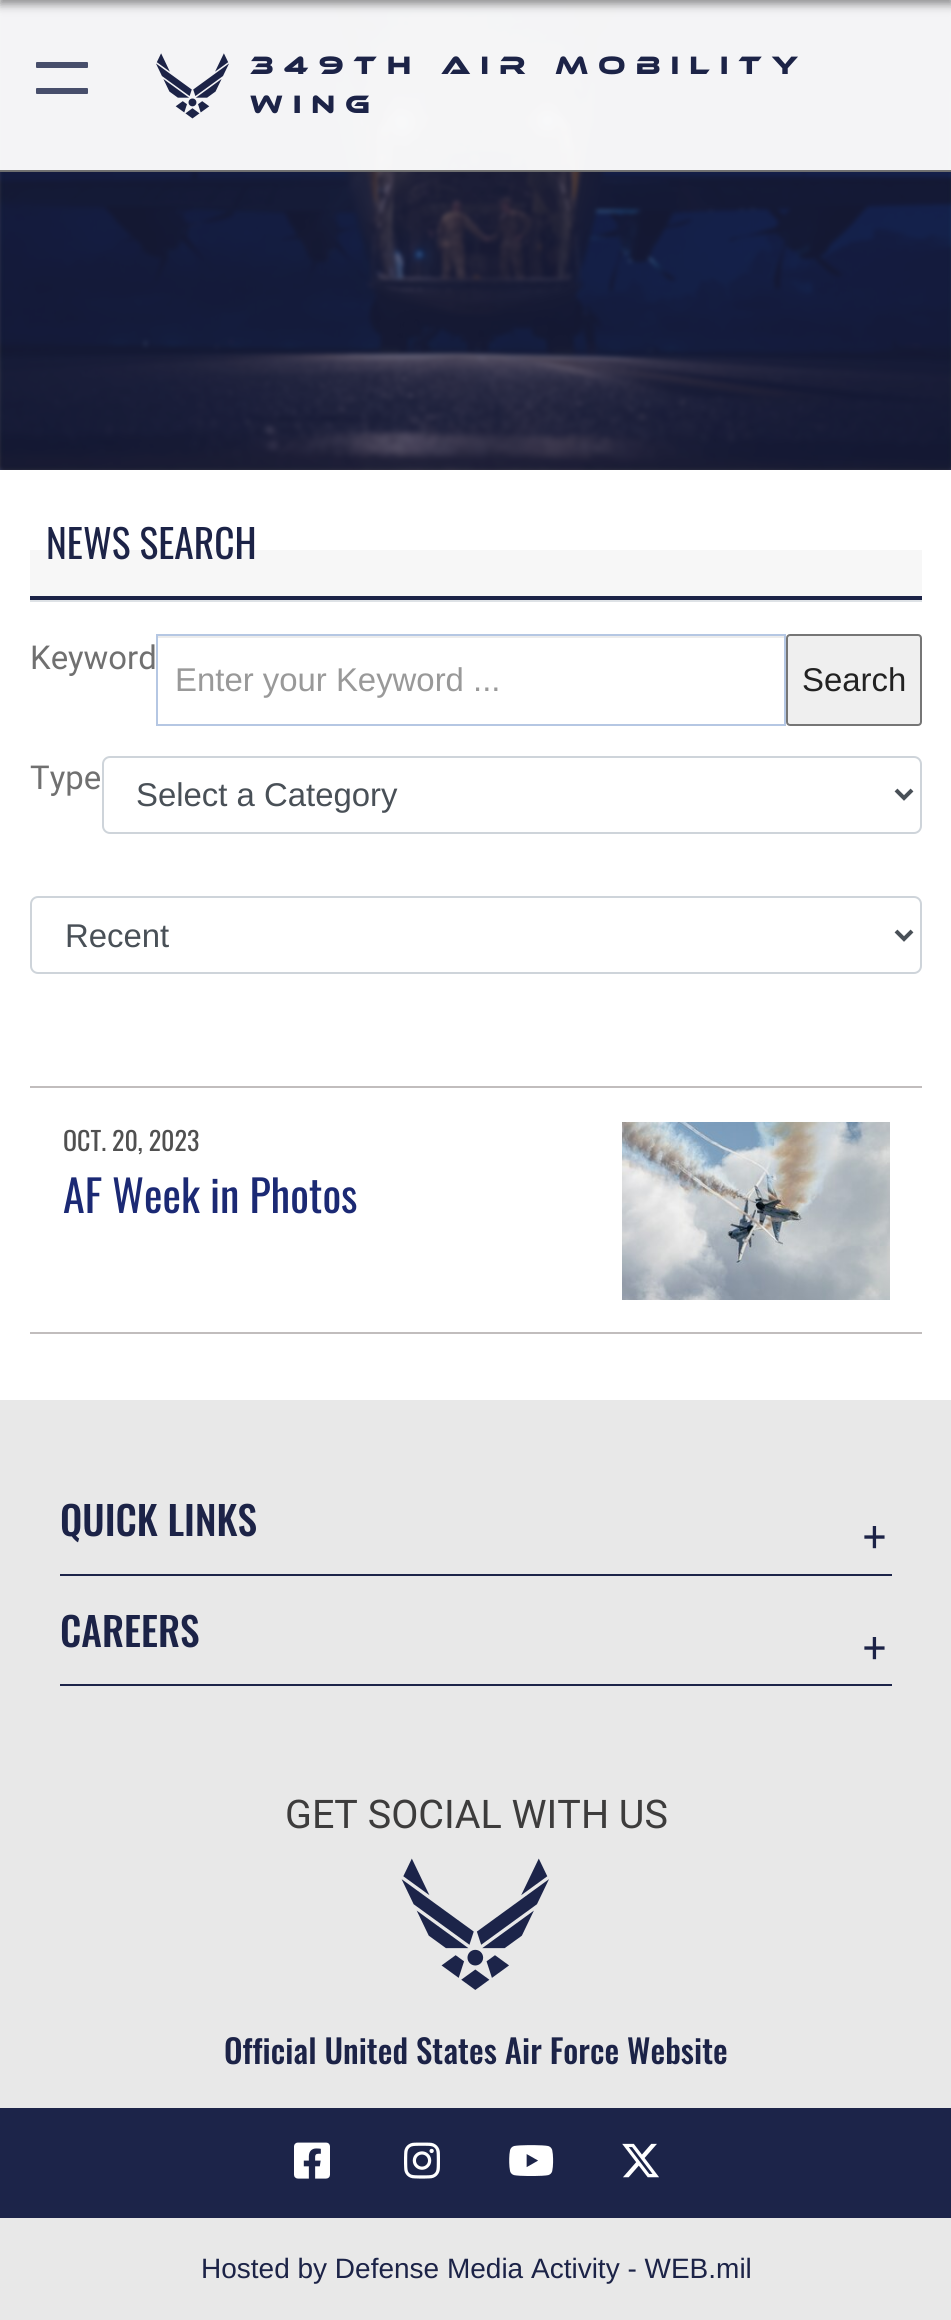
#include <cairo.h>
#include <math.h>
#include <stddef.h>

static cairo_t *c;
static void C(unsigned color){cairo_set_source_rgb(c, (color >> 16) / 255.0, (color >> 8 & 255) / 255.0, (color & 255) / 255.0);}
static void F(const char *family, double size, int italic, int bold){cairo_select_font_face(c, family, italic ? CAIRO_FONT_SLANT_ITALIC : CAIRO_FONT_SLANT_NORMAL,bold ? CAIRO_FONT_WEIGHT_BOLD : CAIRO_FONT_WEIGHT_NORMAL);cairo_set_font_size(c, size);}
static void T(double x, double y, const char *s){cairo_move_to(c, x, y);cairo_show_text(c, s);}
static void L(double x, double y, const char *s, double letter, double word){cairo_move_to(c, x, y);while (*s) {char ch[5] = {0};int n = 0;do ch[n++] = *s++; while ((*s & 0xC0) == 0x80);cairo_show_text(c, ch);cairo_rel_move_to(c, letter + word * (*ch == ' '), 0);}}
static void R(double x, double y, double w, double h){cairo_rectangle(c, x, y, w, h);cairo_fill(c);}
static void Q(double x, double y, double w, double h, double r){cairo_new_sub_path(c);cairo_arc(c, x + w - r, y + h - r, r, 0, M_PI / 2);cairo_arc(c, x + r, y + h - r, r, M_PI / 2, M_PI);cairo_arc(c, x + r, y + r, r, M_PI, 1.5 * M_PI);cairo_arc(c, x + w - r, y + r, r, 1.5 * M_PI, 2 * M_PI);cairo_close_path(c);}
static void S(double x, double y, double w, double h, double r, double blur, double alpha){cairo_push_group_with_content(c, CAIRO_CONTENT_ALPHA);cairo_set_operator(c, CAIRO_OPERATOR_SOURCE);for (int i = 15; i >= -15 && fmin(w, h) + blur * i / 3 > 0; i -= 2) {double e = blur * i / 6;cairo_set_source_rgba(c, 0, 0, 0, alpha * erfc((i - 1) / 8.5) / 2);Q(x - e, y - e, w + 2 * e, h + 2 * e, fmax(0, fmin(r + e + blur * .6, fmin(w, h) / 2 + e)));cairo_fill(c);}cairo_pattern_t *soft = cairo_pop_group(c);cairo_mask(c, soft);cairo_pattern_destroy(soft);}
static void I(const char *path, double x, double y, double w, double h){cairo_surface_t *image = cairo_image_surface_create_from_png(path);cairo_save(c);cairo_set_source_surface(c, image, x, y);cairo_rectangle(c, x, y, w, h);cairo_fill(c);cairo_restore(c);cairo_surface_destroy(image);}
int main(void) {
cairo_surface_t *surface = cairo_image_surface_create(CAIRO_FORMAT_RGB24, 951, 2320);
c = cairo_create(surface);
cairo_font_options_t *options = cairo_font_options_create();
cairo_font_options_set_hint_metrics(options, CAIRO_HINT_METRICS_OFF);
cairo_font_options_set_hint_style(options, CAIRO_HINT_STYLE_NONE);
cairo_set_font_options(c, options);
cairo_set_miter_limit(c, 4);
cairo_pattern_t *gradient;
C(0xffffff);
cairo_paint(c);
C(0x4a4f6c);
R(0,0,951,470);
I("1.png",0,0,951,470);
cairo_save(c);
cairo_rectangle(c,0,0,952,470);
cairo_clip(c);
C(0x1c2347);
S(0,-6,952,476,0,2,.7);
cairo_restore(c);
cairo_set_source_rgba(c,1,1,1,0.95);
R(0,0,951,170);
C(0x181819);
S(0,-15,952,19,0,5,.5);
C(0x707070);
R(0,170,951,2);
C(0x474e6b);
Q(36,62,52,6,1);
cairo_fill(c);
Q(36,88,52,6,1);
cairo_fill(c);
I("2.png",156,53,73,66);
F("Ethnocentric",26,0,0);
C(0x1c2347);
L(250,74,"349th Air Mobility",9.9,0);
L(250,113,"Wing",9.9,0);
gradient = cairo_pattern_create_linear(476,520,476,600);
cairo_pattern_add_color_stop_rgba(gradient,0,1,1,1,1);
cairo_pattern_add_color_stop_rgba(gradient,.37,1,1,1,1);
cairo_pattern_add_color_stop_rgba(gradient,.37,0.969,0.969,0.969,1);
cairo_pattern_add_color_stop_rgba(gradient,1,0.969,0.969,0.969,1);
cairo_set_source(c,gradient);
cairo_pattern_destroy(gradient);
R(30,550,892,46);
C(0xdee2e6);
R(30,600,892,2);
F("Oswald",39.5,0,0);
C(0x1c2347);
T(46,559,"NEWS SEARCH");
R(30,596,892,4);
F("Roboto",32.9,0,0);
C(0x707070);
T(30,669,"Keyword");
C(0xececec);
R(158,636,626,2);
cairo_rectangle(c,157,635,628,90);
C(0xb5c7e3);
cairo_stroke(c);
F("Liberation Sans",32.9,0,0);
C(0x999999);
T(175,691,"Enter your Keyword ...");
C(0xefefef);
Q(787,635,134,90,3);
cairo_fill_preserve(c);
C(0x767676);
cairo_stroke(c);
C(0x222222);
T(802,691,"Search");
F("Roboto",32.9,0,0);
C(0x707070);
T(30,789,"Type");
Q(103,757,818,76,7);
C(0xced4da);
cairo_stroke(c);
cairo_new_path(c);
cairo_move_to(c,896,790);
cairo_line_to(c,904,798);
cairo_line_to(c,912,790);
C(0x495057);
cairo_set_line_width(c,4);
cairo_stroke(c);
F("Liberation Sans",32.9,0,0);
T(136,806,"Select a Category");
Q(31,897,890,76,7);
C(0xced4da);
cairo_set_line_width(c,2);
cairo_stroke(c);
cairo_new_path(c);
cairo_move_to(c,896,931);
cairo_line_to(c,904,939);
cairo_line_to(c,912,931);
C(0x495057);
cairo_set_line_width(c,4);
cairo_stroke(c);
T(65,947,"Recent");
C(0xc1bdbd);
R(30,1086,892,2);
R(30,1332,892,2);
F("Oswald",26,0,0);
C(0x505050);
T(63,1151,"OCT. 20, 2023");
F("Oswald",44,0,0);
C(0x1b2974);
T(63,1213,"AF Week in Photos");
I("3.png",622,1122,268,178);
C(0xe8e8e8);
R(0,1400,951,920);
C(0x1c2449);
R(60,1574,832,2);
F("Oswald Medium",39.5,0,0);
C(0x1c2347);
T(60,1536,"QUICK LINKS");
F("Oswald Light",60,0,0);
T(863,1562,"+");
C(0x1c2449);
R(60,1684,832,2);
F("Oswald Medium",39.5,0,0);
C(0x1c2347);
T(60,1647,"CAREERS");
F("Oswald Light",60,0,0);
T(863,1673,"+");
F("Roboto",39.5,0,0);
C(0x3d3c3c);
T(285,1828,"GET SOCIAL WITH US");
I("4.png",401,1858,148,132);
F("Oswald Medium",32.9,0,0);
C(0x1c2347);
T(224,2064,"Official United States Air Force Website");
C(0x1c2449);
R(0,2108,951,110);
I("5.png",294,2142,36,37);
I("6.png",404,2142,36,37);
I("7.png",509,2145,45,31);
I("8.png",622,2143,37,35);
F("Liberation Sans",28,0,0);
C(0x1c2347);
T(201,2278,"Hosted by Defense Media Activity - WEB.mil");
cairo_surface_write_to_png(surface, "o.png");
cairo_font_options_destroy(options);
cairo_destroy(c);
cairo_surface_destroy(surface);
return 0;
}
